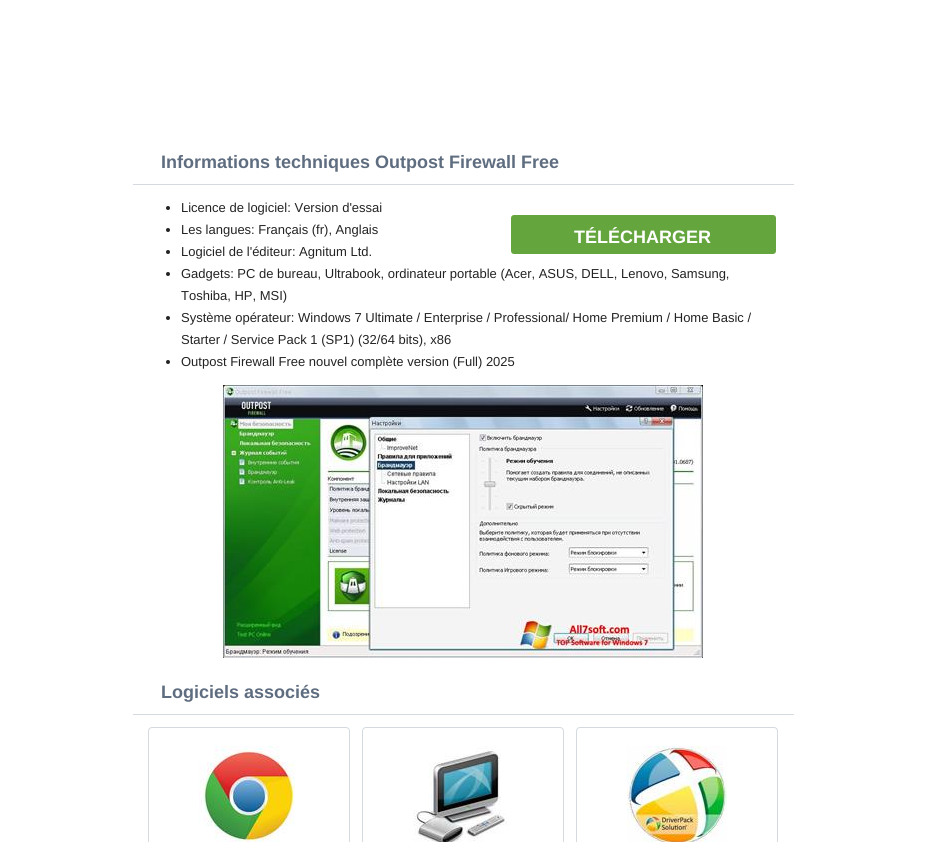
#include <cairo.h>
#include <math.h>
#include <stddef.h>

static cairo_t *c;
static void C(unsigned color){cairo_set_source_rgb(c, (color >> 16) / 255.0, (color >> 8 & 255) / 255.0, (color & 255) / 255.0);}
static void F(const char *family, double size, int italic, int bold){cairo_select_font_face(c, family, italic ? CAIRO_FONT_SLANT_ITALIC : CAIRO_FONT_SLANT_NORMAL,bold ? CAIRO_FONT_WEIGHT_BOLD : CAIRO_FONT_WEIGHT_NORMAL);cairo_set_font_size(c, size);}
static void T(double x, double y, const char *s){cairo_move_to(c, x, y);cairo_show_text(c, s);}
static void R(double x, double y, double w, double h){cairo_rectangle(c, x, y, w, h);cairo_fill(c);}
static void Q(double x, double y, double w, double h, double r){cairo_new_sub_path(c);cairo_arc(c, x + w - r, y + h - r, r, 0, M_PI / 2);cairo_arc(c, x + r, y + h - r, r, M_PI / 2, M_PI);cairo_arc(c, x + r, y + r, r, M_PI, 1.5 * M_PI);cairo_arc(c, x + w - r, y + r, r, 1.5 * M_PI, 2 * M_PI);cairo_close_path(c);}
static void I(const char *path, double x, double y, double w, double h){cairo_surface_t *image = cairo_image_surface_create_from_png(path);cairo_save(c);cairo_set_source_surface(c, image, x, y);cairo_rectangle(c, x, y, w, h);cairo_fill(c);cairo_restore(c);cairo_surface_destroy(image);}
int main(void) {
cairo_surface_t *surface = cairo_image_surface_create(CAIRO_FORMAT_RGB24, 926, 842);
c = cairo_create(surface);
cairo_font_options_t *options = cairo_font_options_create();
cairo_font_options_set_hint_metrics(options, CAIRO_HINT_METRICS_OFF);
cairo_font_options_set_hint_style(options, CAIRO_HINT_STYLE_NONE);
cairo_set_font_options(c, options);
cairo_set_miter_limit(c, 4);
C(0xffffff);
cairo_paint(c);
C(0xd4dadf);
R(133,184,661,1);
F("Liberation Sans",18,0,1);
C(0x5f6d80);
T(161,168,"Informations techniques Outpost Firewall Free");
C(0x232323);
cairo_new_path(c);
cairo_arc(c,168,208,2,0,2 * M_PI);
cairo_fill(c);
F("Liberation Sans",13,0,0);
T(181,212,"Licence de logiciel: Version d'essai");
cairo_new_path(c);
cairo_arc(c,168,230,2,0,2 * M_PI);
cairo_fill(c);
T(181,234,"Les langues: Français (fr), Anglais");
cairo_new_path(c);
cairo_arc(c,168,252,2,0,2 * M_PI);
cairo_fill(c);
T(181,256,"Logiciel de l'éditeur: Agnitum Ltd.");
cairo_new_path(c);
cairo_arc(c,168,274,2,0,2 * M_PI);
cairo_fill(c);
T(181,278,"Gadgets: PC de bureau, Ultrabook, ordinateur portable (Acer, ASUS, DELL, Lenovo, Samsung,");
T(181,300,"Toshiba, HP, MSI)");
cairo_new_path(c);
cairo_arc(c,168,318,2,0,2 * M_PI);
cairo_fill(c);
T(181,322,"Système opérateur: Windows 7 Ultimate / Enterprise / Professional/ Home Premium / Home Basic /");
T(181,344,"Starter / Service Pack 1 (SP1) (32/64 bits), x86");
cairo_new_path(c);
cairo_arc(c,168,362,2,0,2 * M_PI);
cairo_fill(c);
T(181,366,"Outpost Firewall Free nouvel complète version (Full) 2025");
C(0x64a53e);
Q(511,215,265,39,3);
cairo_fill(c);
F("Liberation Sans",18,0,1);
C(0xffffff);
T(574,243,"TÉLÉCHARGER");
I("1.png",223,385,480,273);
C(0xd4dadf);
R(133,714,661,1);
C(0x5f6d80);
T(161,698,"Logiciels associés");
Q(148.5,727.5,201,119,3.5);
C(0xd4dadf);
cairo_set_line_width(c,1);
cairo_stroke(c);
I("2.png",199,746,96,96);
Q(362.5,727.5,201,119,3.5);
cairo_stroke(c);
I("3.png",413,746,96,96);
Q(576.5,727.5,201,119,3.5);
cairo_stroke(c);
I("4.png",627,746,100,96);
cairo_surface_write_to_png(surface, "o.png");
cairo_font_options_destroy(options);
cairo_destroy(c);
cairo_surface_destroy(surface);
return 0;
}
